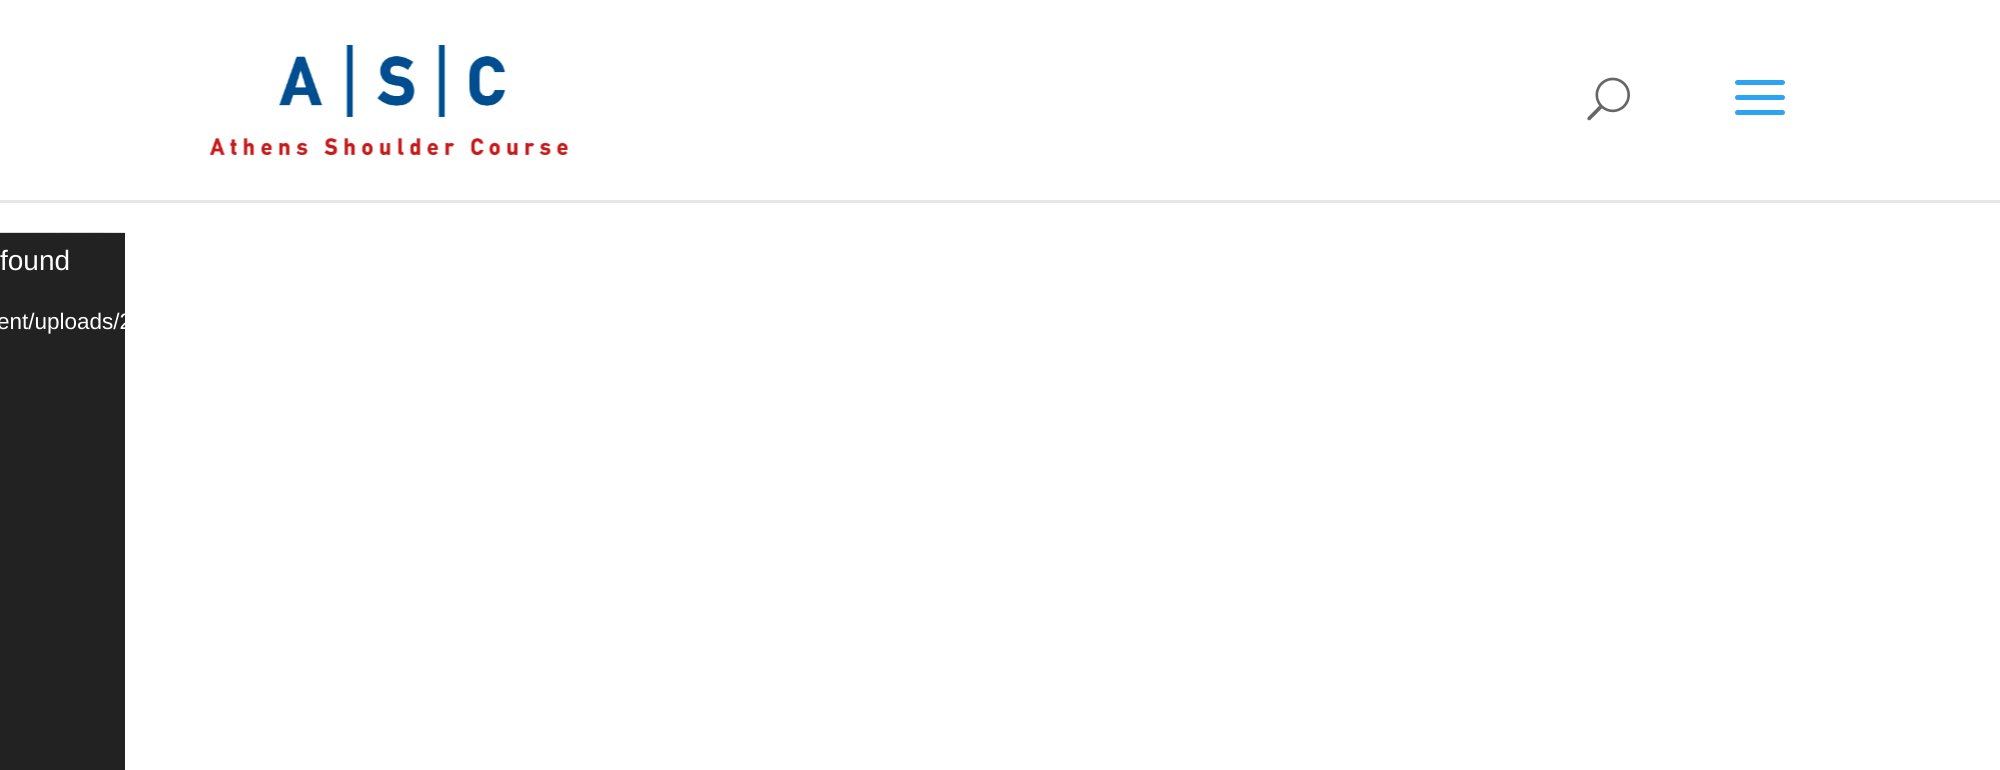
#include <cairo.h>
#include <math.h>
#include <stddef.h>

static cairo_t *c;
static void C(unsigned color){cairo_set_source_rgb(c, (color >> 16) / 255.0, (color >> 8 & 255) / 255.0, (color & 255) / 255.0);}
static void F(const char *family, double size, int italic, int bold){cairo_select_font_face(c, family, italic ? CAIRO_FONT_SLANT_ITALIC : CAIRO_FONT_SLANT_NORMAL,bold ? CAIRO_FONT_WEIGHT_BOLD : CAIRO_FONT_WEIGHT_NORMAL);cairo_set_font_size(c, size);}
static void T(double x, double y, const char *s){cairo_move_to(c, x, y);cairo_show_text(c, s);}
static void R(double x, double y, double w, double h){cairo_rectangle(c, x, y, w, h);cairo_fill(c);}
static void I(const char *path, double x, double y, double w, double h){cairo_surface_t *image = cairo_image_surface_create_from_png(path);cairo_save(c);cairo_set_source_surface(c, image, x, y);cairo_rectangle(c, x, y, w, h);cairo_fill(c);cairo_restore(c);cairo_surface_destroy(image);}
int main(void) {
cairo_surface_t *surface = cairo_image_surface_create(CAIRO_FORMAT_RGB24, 2000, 770);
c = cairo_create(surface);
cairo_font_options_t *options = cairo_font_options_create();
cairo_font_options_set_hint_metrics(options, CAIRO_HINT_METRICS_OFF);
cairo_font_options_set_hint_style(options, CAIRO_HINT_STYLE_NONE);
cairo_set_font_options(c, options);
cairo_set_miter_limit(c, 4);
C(0xffffff);
cairo_paint(c);
C(0xe6e6e6);
R(0,200,2000,3);
I("1.png",209,45,359,110);
I("2.png",1587,77,43,44);
I("3.png",1735,80,50,35);
I("4.png",0,232,125,1);
C(0x222222);
R(0,233,125,537);
F("Liberation Sans",28,0,0);
C(0xffffff);
T(0,270,"found");
cairo_save(c);
cairo_rectangle(c,0,233,125,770);
cairo_clip(c);
F("Liberation Sans",22.5,0,0);
T(-3,329,"ent/uploads/2");
cairo_restore(c);
cairo_surface_write_to_png(surface, "o.png");
cairo_font_options_destroy(options);
cairo_destroy(c);
cairo_surface_destroy(surface);
return 0;
}
